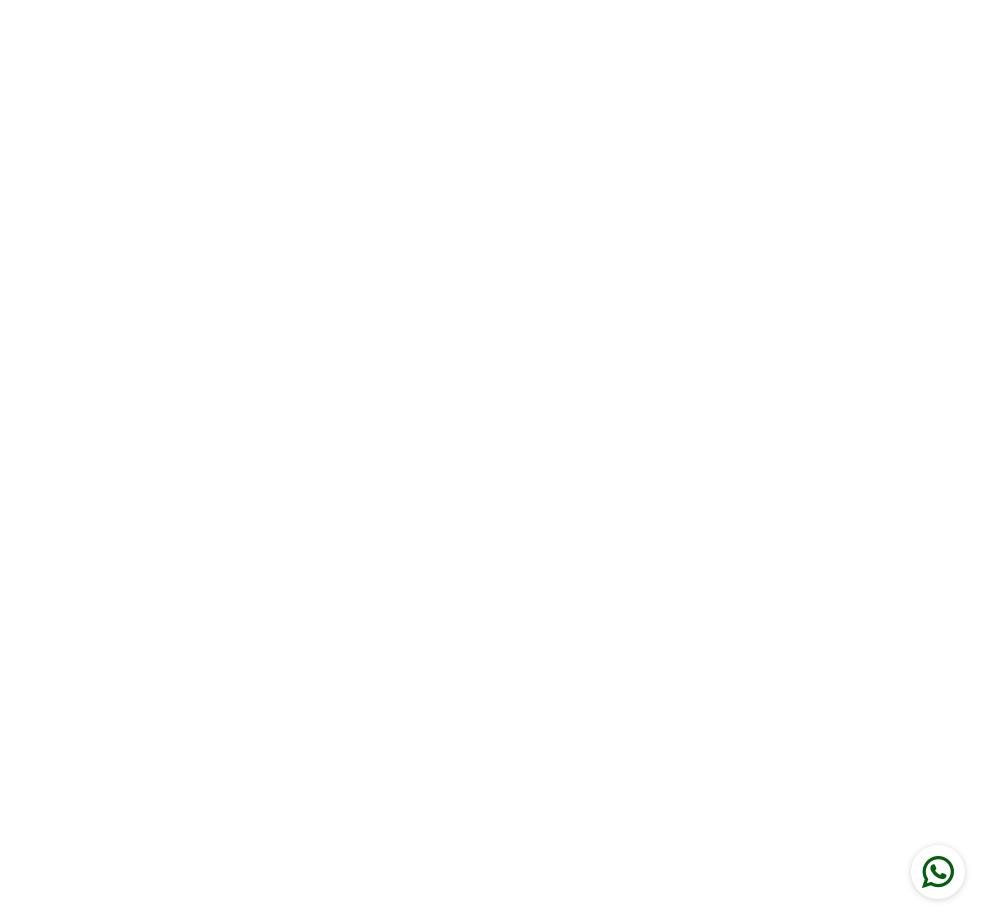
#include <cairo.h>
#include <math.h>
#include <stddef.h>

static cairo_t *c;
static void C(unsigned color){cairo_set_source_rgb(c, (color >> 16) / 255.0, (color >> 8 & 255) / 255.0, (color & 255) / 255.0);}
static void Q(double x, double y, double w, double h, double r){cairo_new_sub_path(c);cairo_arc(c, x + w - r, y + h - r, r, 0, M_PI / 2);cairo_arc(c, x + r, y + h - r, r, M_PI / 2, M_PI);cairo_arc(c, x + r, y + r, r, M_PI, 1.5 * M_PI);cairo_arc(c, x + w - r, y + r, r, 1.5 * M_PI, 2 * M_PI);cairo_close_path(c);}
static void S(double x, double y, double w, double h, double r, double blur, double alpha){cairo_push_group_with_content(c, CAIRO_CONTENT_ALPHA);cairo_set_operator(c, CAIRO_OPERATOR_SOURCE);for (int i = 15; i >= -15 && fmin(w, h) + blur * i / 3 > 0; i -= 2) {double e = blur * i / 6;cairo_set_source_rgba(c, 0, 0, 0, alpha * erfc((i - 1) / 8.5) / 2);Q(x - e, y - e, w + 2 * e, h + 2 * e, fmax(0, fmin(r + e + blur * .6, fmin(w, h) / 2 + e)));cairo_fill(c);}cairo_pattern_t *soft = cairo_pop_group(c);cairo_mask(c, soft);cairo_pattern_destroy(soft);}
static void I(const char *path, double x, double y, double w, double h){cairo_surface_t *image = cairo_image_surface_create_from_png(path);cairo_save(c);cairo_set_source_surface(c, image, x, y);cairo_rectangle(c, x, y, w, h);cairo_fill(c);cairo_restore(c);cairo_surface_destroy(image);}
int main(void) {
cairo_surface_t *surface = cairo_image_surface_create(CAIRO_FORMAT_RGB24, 985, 924);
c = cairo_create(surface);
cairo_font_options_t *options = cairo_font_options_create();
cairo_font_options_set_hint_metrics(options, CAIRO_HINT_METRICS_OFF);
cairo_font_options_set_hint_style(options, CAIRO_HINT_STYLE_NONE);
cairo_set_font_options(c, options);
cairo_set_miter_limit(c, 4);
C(0xffffff);
cairo_paint(c);
C(0x1b1b1b);
S(911,846,54,54,27,3,.2);
C(0xffffff);
cairo_arc(c,938,872,26.5,0,2 * M_PI);
cairo_fill_preserve(c);
cairo_set_line_width(c,1);
cairo_stroke(c);
I("1.png",922,856,32,32);
cairo_surface_write_to_png(surface, "o.png");
cairo_font_options_destroy(options);
cairo_destroy(c);
cairo_surface_destroy(surface);
return 0;
}
